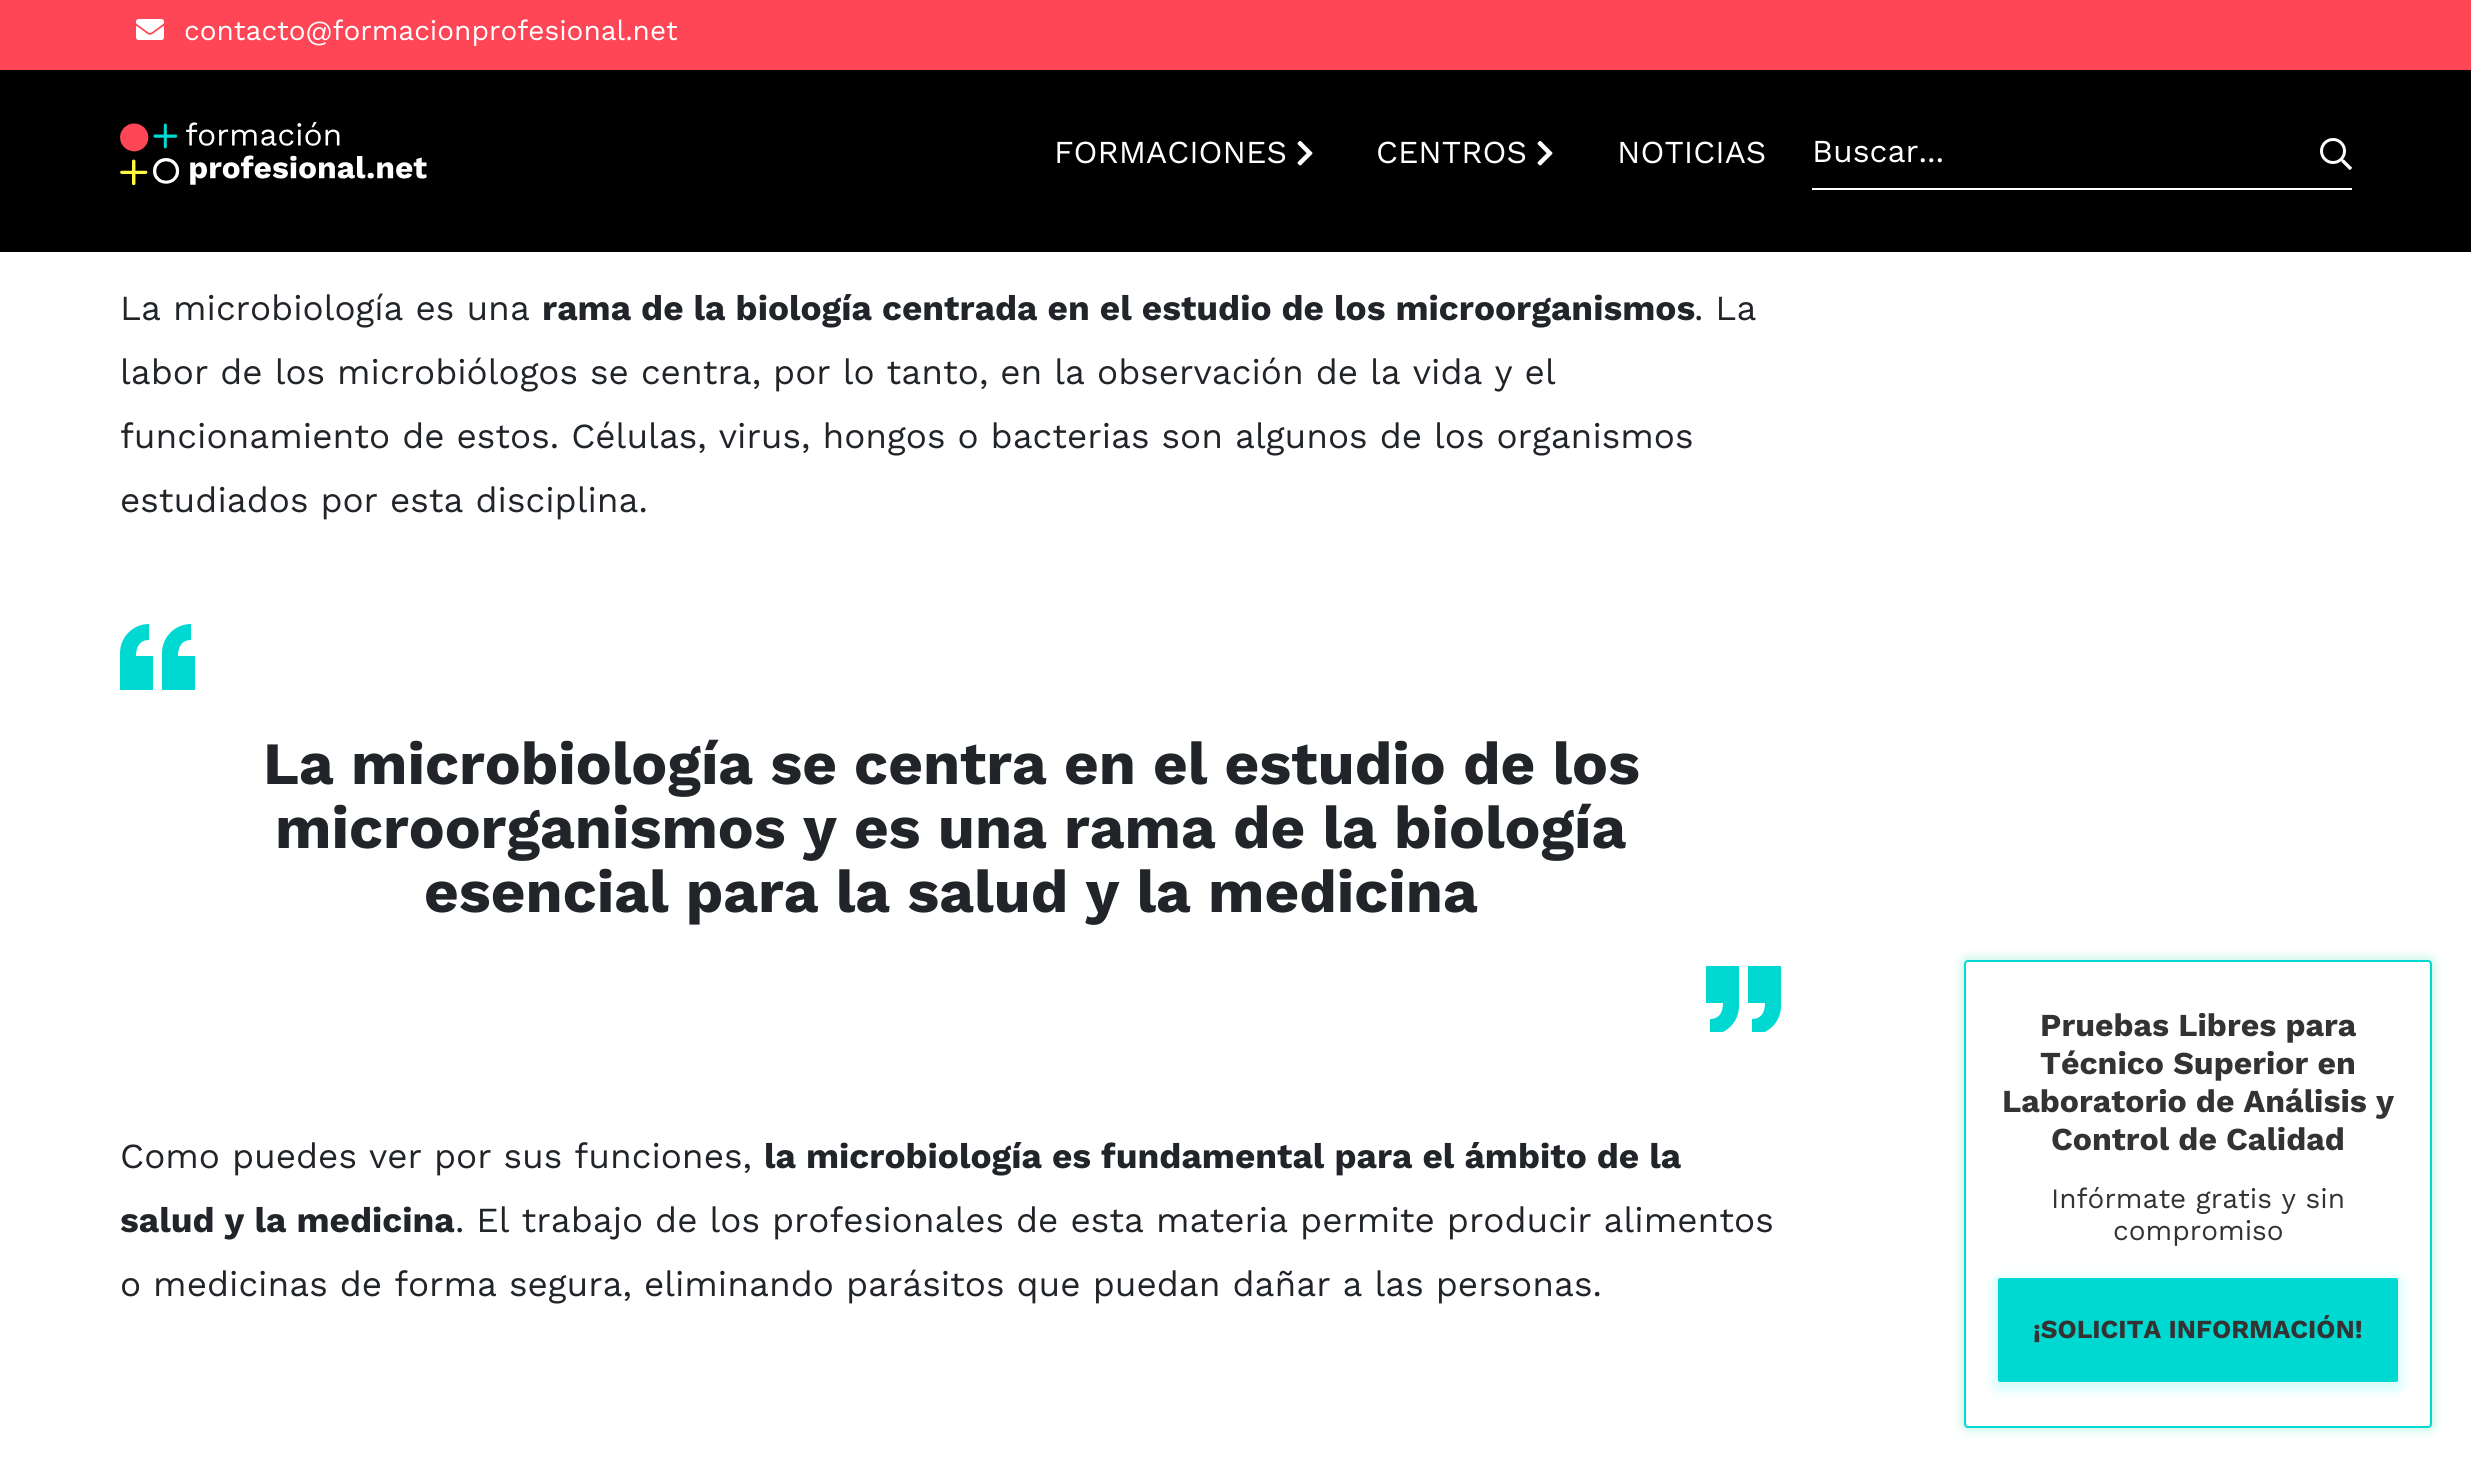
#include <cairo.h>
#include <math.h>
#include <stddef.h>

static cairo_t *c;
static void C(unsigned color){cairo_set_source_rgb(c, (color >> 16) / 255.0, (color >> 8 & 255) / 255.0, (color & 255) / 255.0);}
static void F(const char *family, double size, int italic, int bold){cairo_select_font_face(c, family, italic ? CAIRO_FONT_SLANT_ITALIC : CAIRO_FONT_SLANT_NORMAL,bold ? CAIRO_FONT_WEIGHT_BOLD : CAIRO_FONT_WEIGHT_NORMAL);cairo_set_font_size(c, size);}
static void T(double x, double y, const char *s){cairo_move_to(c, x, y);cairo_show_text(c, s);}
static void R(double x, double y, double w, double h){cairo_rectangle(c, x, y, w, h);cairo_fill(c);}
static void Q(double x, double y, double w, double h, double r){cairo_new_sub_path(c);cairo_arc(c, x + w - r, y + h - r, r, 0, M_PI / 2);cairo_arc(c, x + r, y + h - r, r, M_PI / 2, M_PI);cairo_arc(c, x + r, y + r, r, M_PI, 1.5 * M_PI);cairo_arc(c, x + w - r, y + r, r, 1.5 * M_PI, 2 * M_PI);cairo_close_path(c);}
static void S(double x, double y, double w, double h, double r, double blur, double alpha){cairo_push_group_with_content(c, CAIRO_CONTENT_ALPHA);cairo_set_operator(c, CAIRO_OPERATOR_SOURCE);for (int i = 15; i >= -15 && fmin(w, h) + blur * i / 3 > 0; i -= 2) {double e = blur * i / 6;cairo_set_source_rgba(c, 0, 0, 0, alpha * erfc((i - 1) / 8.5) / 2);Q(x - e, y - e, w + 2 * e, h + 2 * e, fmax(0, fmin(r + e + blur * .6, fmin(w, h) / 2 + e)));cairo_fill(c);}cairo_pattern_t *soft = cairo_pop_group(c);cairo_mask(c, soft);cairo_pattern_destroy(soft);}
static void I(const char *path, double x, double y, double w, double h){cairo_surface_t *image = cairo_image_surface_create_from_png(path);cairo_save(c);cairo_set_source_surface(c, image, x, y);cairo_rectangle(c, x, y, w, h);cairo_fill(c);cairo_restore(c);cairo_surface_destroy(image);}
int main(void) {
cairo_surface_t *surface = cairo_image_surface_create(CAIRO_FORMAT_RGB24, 2471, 1467);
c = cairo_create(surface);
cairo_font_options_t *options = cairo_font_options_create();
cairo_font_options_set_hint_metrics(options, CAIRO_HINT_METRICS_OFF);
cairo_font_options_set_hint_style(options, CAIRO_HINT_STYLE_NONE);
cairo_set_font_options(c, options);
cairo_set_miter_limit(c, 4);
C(0xffffff);
cairo_paint(c);
C(0xff4657);
R(0,0,2471,70);
I("1.png",136,19,28,21);
F("Work Sans",28,0,0);
C(0xffffff);
T(184,40,"contacto@formacionprofesional.net");
C(0x000000);
R(0,70,2471,182);
I("2.png",120,122,307,64);
F("Work Sans",32,0,0);
C(0xffffff);
T(1054,163,"FORMACIONES");
I("3.png",1297,141,16,25);
T(1376,163,"CENTROS");
I("3.png",1537,141,16,25);
T(1617,163,"NOTICIAS");
R(1812,188,540,2);
T(1812,162,"Buscar...");
I("4.png",2320,138,32,32);
F("Work Sans",35.2,0,0);
C(0x212529);
T(120,320,"La microbiología es una");
F("Work Sans",35.2,0,1);
T(542,320,"rama de la biología centrada en el estudio de los microorganismos");
F("Work Sans",35.2,0,0);
T(1694,320,". La");
T(120,384,"labor de los microbiólogos se centra, por lo tanto, en la observación de la vida y el");
T(120,448,"funcionamiento de estos. Células, virus, hongos o bacterias son algunos de los organismos");
T(120,512,"estudiados por esta disciplina.");
cairo_save(c);
cairo_rectangle(c,120,624,76,66);
cairo_clip(c);
C(0x00d8d2);
cairo_new_path(c);
cairo_move_to(c,195,656);
cairo_line_to(c,178,656);
cairo_curve_to(c,178,648,181,640,191,640);
cairo_line_to(c,191,624);
cairo_curve_to(c,175,624,162,637,162,653);
cairo_line_to(c,162,693);
cairo_line_to(c,195,693);
cairo_close_path(c);
cairo_fill(c);
cairo_new_path(c);
cairo_move_to(c,153,693);
cairo_line_to(c,153,656);
cairo_line_to(c,136,656);
cairo_curve_to(c,136,648,139,640,149,640);
cairo_line_to(c,149,624);
cairo_curve_to(c,133,624,120,637,120,653);
cairo_line_to(c,120,693);
cairo_close_path(c);
cairo_fill(c);
cairo_restore(c);
F("Work Sans",60,0,1);
T(263,784,"La microbiología se centra en el estudio de los");
T(275,848,"microorganismos y es una rama de la biología");
T(424,912,"esencial para la salud y la medicina");
cairo_save(c);
cairo_rectangle(c,1706,966,76,66);
cairo_clip(c);
C(0x00d8d2);
cairo_new_path(c);
cairo_move_to(c,1706,1003);
cairo_line_to(c,1723,1003);
cairo_curve_to(c,1723,1011,1720,1019,1710,1019);
cairo_line_to(c,1710,1035);
cairo_curve_to(c,1726,1035,1739,1022,1739,1006);
cairo_line_to(c,1739,966);
cairo_line_to(c,1706,966);
cairo_close_path(c);
cairo_fill(c);
cairo_new_path(c);
cairo_move_to(c,1748,966);
cairo_line_to(c,1748,1003);
cairo_line_to(c,1765,1003);
cairo_curve_to(c,1765,1011,1762,1019,1752,1019);
cairo_line_to(c,1752,1035);
cairo_curve_to(c,1768,1035,1781,1022,1781,1006);
cairo_line_to(c,1781,966);
cairo_close_path(c);
cairo_fill(c);
cairo_restore(c);
F("Work Sans",35.2,0,0);
T(120,1168,"Como puedes ver por sus funciones,");
F("Work Sans",35.2,0,1);
T(764,1168,"la microbiología es fundamental para el ámbito de la");
T(120,1232,"salud y la medicina");
F("Work Sans",35.2,0,0);
T(455,1232,". El trabajo de los profesionales de esta materia permite producir alimentos");
T(120,1296,"o medicinas de forma segura, eliminando parásitos que puedan dañar a las personas.");
C(0x51deb7);
S(1960,956,476,476,8,4,.25);
C(0xffffff);
Q(1965,961,466,466,3);
cairo_fill_preserve(c);
C(0x00d8d2);
cairo_stroke(c);
F("Work Sans",32,0,1);
C(0x333333);
T(2040,1036,"Pruebas Libres para");
T(2040,1074,"Técnico Superior en");
T(2002,1112,"Laboratorio de Análisis y");
T(2051,1150,"Control de Calidad");
F("Work Sans",28,0,0);
T(2051,1208,"Infórmate gratis y sin");
T(2113,1240,"compromiso");
C(0xdcfdfd);
S(1992,1276,412,116,8,4,1);
C(0x00d8d2);
Q(1999,1279,398,102,1);
cairo_fill_preserve(c);
cairo_stroke(c);
F("Work Sans",26,0,1);
C(0x333333);
T(2033,1338,"¡SOLICITA INFORMACIÓN!");
cairo_surface_write_to_png(surface, "o.png");
cairo_font_options_destroy(options);
cairo_destroy(c);
cairo_surface_destroy(surface);
return 0;
}
